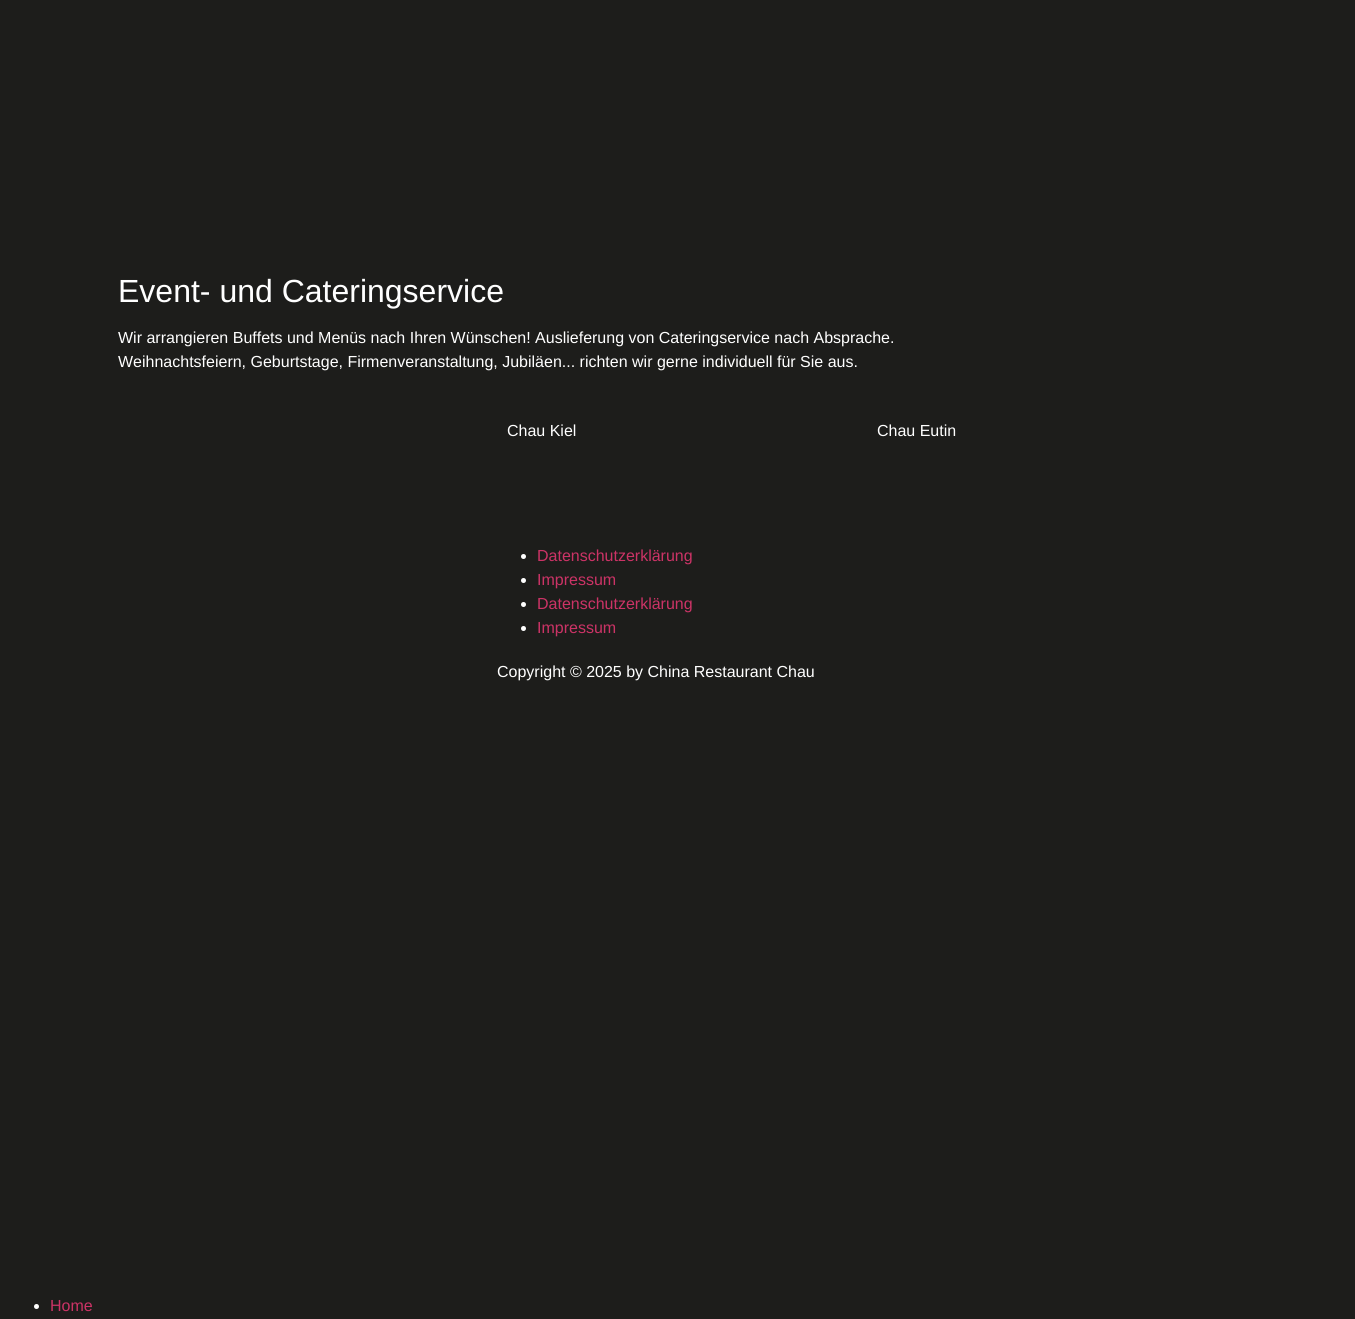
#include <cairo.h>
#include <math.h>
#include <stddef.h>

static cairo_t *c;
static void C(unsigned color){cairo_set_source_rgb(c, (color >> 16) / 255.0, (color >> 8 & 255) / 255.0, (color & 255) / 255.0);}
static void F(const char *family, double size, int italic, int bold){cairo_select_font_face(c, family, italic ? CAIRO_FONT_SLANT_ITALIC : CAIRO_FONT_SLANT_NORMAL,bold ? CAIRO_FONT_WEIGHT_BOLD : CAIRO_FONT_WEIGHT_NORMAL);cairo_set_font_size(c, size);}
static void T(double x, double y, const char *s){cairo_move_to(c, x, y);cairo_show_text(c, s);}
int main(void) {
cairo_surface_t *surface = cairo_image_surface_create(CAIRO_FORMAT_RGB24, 1355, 1319);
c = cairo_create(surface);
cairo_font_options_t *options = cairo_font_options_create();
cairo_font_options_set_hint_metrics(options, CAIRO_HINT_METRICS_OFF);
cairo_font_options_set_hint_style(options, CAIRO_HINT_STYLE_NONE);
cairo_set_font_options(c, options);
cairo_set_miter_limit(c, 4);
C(0x1d1d1b);
cairo_paint(c);
F("Liberation Sans",32,0,0);
C(0xffffff);
T(118,302,"Event- und Cateringservice");
F("Liberation Sans",16,0,0);
T(118,343,"Wir arrangieren Buffets und Menüs nach Ihren Wünschen! Auslieferung von Cateringservice nach Absprache.");
T(118,367,"Weihnachtsfeiern, Geburtstage, Firmenveranstaltung, Jubiläen... richten wir gerne individuell für Sie aus.");
T(507,436,"Chau Kiel");
T(877,436,"Chau Eutin");
cairo_new_path(c);
cairo_arc(c,523.5,556.5,2.5,0,2 * M_PI);
cairo_fill(c);
C(0xcc3366);
T(537,561,"Datenschutzerklärung");
C(0xffffff);
cairo_new_path(c);
cairo_arc(c,523.5,580.5,2.5,0,2 * M_PI);
cairo_fill(c);
C(0xcc3366);
T(537,585,"Impressum");
C(0xffffff);
cairo_new_path(c);
cairo_arc(c,523.5,604.5,2.5,0,2 * M_PI);
cairo_fill(c);
C(0xcc3366);
T(537,609,"Datenschutzerklärung");
C(0xffffff);
cairo_new_path(c);
cairo_arc(c,523.5,628.5,2.5,0,2 * M_PI);
cairo_fill(c);
C(0xcc3366);
T(537,633,"Impressum");
C(0xffffff);
T(497,677,"Copyright © 2025 by China Restaurant Chau");
cairo_new_path(c);
cairo_arc(c,36.5,1306.5,2.5,0,2 * M_PI);
cairo_fill(c);
C(0xcc3366);
T(50,1311,"Home");
cairo_surface_write_to_png(surface, "o.png");
cairo_font_options_destroy(options);
cairo_destroy(c);
cairo_surface_destroy(surface);
return 0;
}
